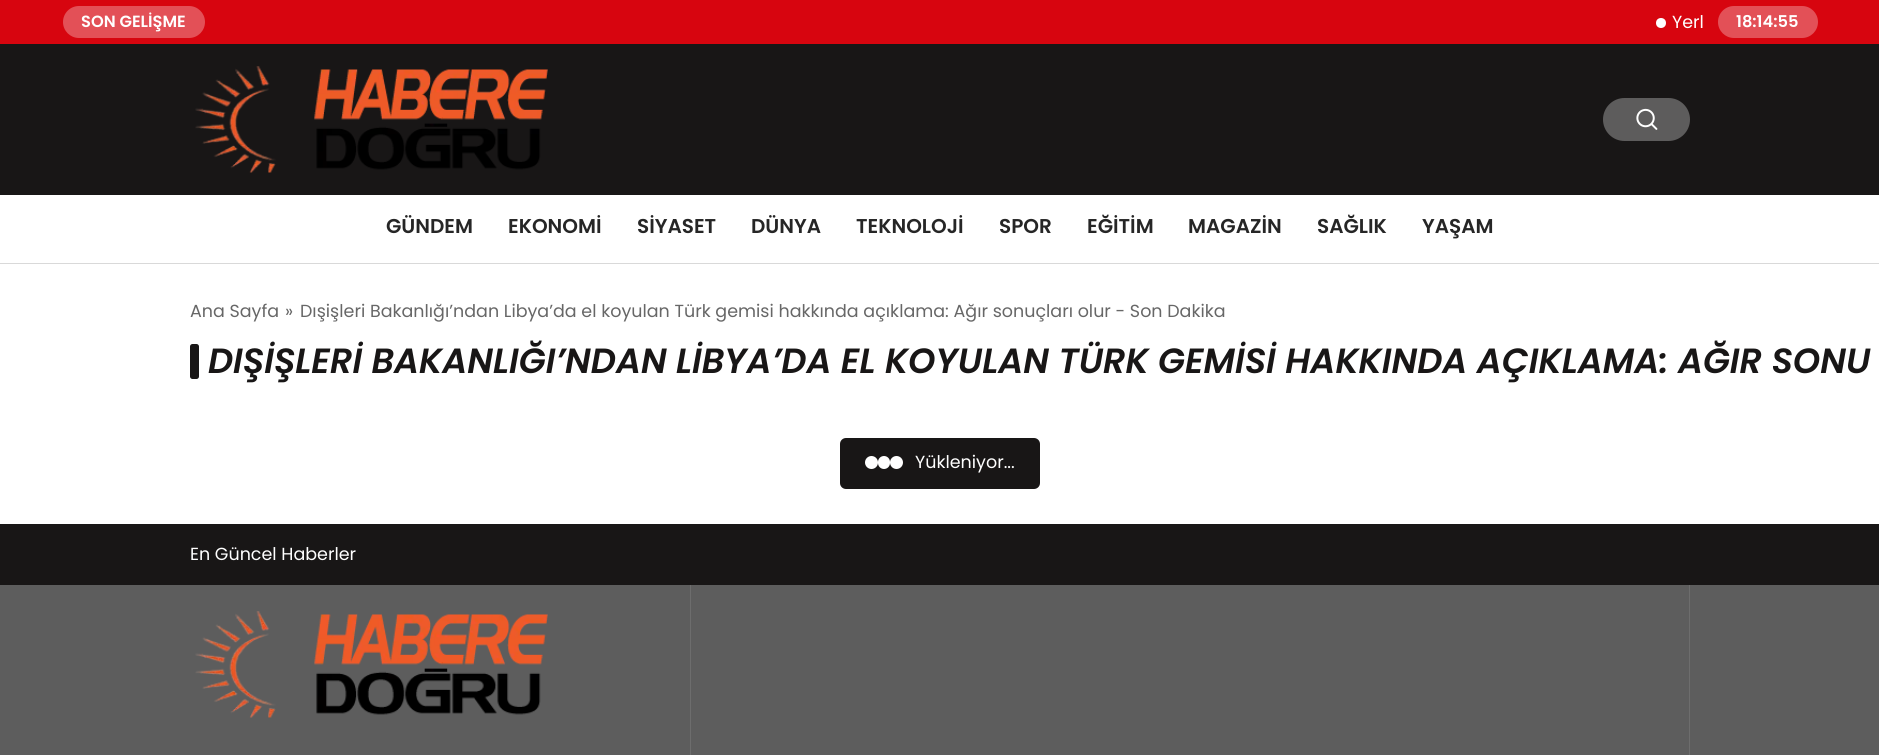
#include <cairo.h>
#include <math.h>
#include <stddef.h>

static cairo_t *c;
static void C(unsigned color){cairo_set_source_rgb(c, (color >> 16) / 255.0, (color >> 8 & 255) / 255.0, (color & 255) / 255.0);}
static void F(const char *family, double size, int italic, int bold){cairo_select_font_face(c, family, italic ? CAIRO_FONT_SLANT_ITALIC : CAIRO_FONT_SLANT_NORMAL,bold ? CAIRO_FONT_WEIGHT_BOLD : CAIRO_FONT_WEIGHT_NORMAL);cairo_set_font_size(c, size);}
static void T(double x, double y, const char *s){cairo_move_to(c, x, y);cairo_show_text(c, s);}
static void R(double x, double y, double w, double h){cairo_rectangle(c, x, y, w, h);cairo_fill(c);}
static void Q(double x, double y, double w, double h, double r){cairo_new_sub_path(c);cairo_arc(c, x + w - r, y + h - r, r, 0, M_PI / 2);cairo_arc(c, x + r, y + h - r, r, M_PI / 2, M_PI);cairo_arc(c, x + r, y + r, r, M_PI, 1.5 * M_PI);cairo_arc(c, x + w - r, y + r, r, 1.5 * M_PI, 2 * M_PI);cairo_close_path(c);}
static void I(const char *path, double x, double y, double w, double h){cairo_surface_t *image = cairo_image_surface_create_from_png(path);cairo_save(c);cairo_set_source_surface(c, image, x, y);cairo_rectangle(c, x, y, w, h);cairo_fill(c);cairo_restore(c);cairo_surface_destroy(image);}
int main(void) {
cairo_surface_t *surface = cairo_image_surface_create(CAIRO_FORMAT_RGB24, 1879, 755);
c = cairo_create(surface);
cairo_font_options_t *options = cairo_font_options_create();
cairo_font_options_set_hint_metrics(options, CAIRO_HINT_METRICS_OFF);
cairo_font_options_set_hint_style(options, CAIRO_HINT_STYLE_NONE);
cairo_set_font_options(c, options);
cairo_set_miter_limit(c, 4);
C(0xffffff);
cairo_paint(c);
C(0xd7050f);
R(0,0,1879,44);
C(0xe35057);
Q(63,6,142,32,16);
cairo_fill(c);
F("Poppins SemiBold",16.25,0,0);
C(0xffffff);
T(81,27,"SON GELİŞME");
cairo_new_path(c);
cairo_arc(c,1661,23,5,0,2 * M_PI);
cairo_fill(c);
F("Poppins",17.5,0,0);
T(1672,28,"Yerl");
C(0xe35057);
Q(1718,6,100,32,16);
cairo_fill(c);
F("Poppins SemiBold",16.25,0,0);
C(0xffffff);
T(1736,27,"18:14:55");
C(0x181616);
R(0,44,1879,151);
I("1.png",195,66,353,107);
C(0x5d5c5c);
Q(1603,98,87,43,21.5);
cairo_fill(c);
I("2.png",1636,108,22,22);
C(0xd9d9d9);
R(0,263,1879,1);
F("Poppins SemiBold",20,0,0);
C(0x262626);
T(386,233,"GÜNDEM");
T(508,233,"EKONOMİ");
T(637,233,"SİYASET");
T(751,233,"DÜNYA");
T(856,233,"TEKNOLOJİ");
T(999,233,"SPOR");
T(1087,233,"EĞİTİM");
T(1188,233,"MAGAZİN");
T(1317,233,"SAĞLIK");
T(1422,233,"YAŞAM");
F("Poppins",17.5,0,0);
C(0x676767);
T(190,317,"Ana Sayfa");
T(285,317,"»");
T(300,317,"Dışişleri Bakanlığı’ndan Libya’da el koyulan Türk gemisi hakkında açıklama: Ağır sonuçları olur - Son Dakika");
C(0x181616);
Q(190,344,9,35,2.5);
cairo_fill(c);
F("Poppins SemiBold",35,1,0);
T(208,373,"DIŞİŞLERİ BAKANLIĞI’NDAN LİBYA’DA EL KOYULAN TÜRK GEMİSİ HAKKINDA AÇIKLAMA: AĞIR SONU");
Q(840,438,200,51,6);
cairo_fill(c);
C(0xffffff);
cairo_arc(c,871.5,462.5,6.5,0,2 * M_PI);
cairo_fill(c);
Q(878,456,12,13,6);
cairo_fill(c);
cairo_arc(c,896.5,462.5,6.5,0,2 * M_PI);
cairo_fill(c);
F("Poppins",17.5,0,0);
T(915,468,"Yükleniyor...");
C(0x181616);
R(0,524,1879,61);
C(0xffffff);
T(190,560,"En Güncel Haberler");
C(0x5d5d5d);
R(0,585,1879,170);
I("3.png",195,611,353,107);
C(0x6d6d6d);
R(1689,585,1,170);
R(690,585,1,170);
cairo_surface_write_to_png(surface, "o.png");
cairo_font_options_destroy(options);
cairo_destroy(c);
cairo_surface_destroy(surface);
return 0;
}
